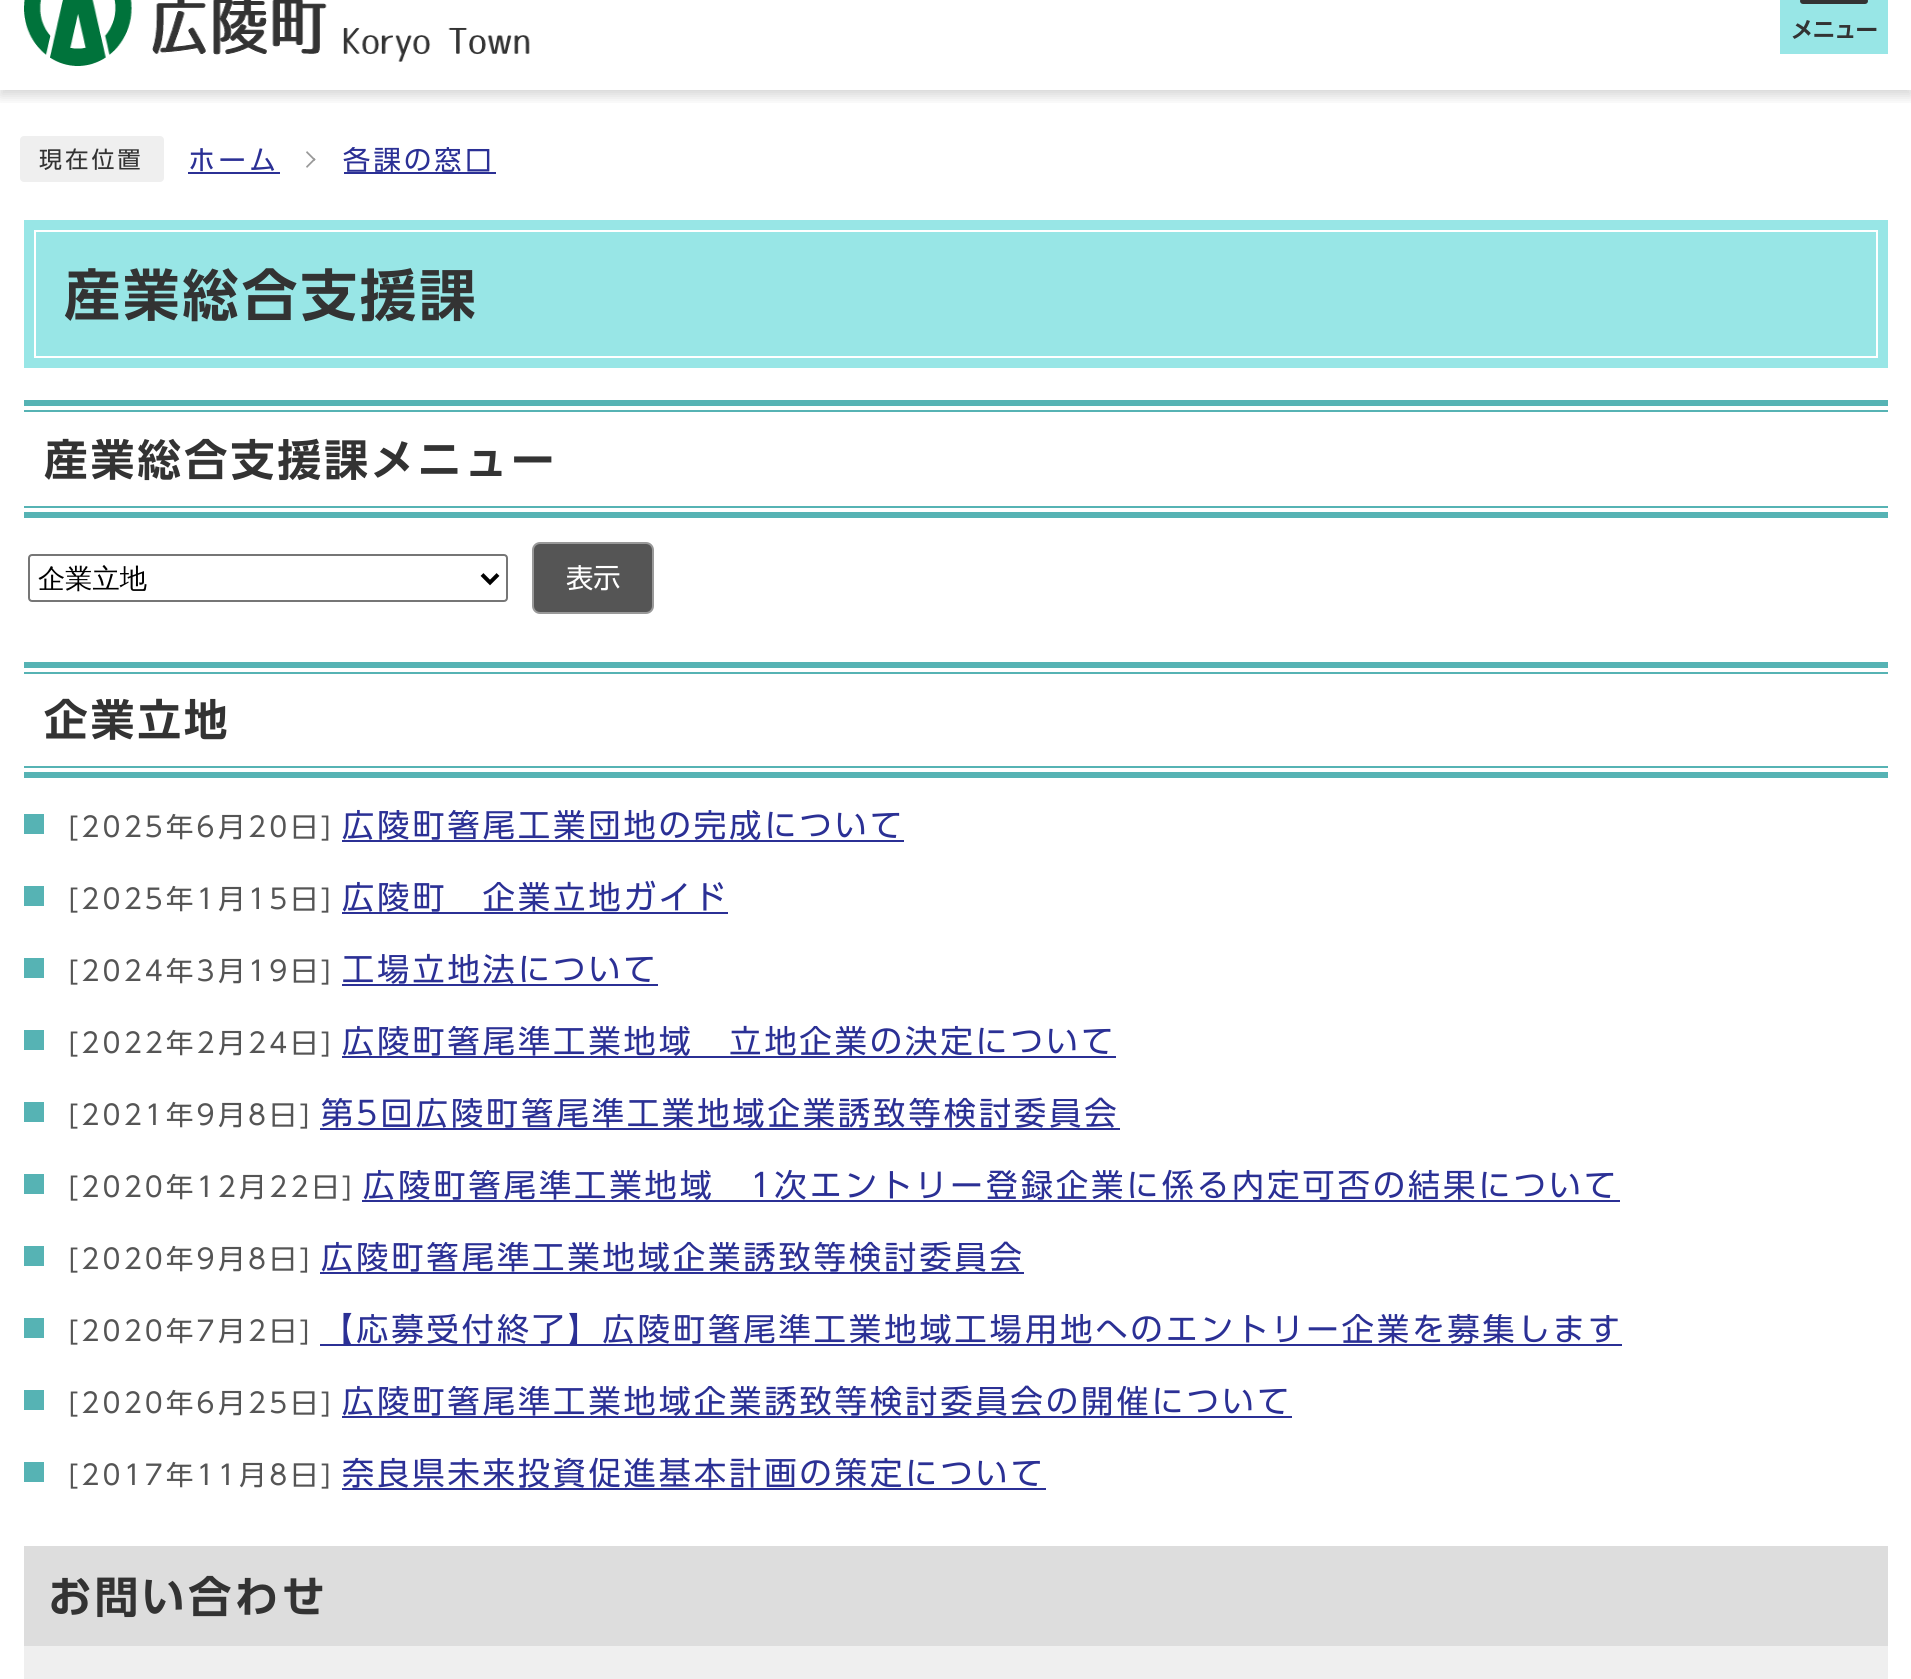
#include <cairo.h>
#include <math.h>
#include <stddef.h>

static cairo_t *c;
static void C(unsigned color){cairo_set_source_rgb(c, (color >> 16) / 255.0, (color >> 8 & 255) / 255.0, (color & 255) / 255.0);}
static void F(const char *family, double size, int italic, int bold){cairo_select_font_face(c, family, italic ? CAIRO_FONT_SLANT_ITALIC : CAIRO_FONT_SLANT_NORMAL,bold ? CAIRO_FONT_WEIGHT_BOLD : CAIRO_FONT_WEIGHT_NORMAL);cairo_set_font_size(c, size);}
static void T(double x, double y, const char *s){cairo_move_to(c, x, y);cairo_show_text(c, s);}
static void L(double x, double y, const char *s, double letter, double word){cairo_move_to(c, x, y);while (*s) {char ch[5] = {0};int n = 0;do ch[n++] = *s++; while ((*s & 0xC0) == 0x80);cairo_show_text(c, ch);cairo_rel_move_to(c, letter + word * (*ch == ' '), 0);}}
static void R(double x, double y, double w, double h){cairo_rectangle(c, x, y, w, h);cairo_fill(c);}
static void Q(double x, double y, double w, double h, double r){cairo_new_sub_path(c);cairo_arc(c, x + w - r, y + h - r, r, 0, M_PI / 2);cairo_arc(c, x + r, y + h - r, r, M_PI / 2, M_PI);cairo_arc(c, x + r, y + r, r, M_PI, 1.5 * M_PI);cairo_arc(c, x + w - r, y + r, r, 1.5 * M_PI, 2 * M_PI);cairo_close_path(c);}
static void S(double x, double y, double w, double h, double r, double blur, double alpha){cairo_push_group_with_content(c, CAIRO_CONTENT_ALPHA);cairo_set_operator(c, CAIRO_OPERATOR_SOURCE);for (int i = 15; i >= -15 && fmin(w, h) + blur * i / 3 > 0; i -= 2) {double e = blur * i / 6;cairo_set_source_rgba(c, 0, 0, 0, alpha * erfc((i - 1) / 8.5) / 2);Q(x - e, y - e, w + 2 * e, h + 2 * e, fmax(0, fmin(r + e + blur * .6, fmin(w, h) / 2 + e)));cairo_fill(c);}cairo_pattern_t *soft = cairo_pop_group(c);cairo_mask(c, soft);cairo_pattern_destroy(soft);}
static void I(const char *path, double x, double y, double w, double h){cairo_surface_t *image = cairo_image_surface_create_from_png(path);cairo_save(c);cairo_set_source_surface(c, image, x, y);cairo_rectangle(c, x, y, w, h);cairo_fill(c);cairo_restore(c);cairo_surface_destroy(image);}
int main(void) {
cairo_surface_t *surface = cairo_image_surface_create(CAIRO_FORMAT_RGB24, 1911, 1679);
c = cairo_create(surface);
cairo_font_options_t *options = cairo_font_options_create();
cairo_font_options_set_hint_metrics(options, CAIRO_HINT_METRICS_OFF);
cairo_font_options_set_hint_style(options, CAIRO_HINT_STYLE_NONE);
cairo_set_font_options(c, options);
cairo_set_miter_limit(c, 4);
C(0xffffff);
cairo_paint(c);
cairo_save(c);
cairo_rectangle(c,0,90,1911,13);
cairo_clip(c);
C(0x000000);
S(0,-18,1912,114,0,6,.16);
cairo_restore(c);
I("1.png",24,0,506,66);
C(0x98e6e6);
R(1780,0,108,54);
C(0x333333);
Q(1800,-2,68,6,3);
cairo_fill(c);
F("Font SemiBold",22.5,0,0);
L(1791,38,"メニュー",-1,0);
C(0xefefef);
Q(20,136,144,46,4);
cairo_fill(c);
F("Font",23,0,0);
C(0x333333);
L(39,168,"現在位置",3.2,0);
F("Font",27.25,0,0);
C(0x2b3095);
L(188,170,"ホーム",3.2,0);
R(188,172,92,2);
C(0x999999);
cairo_new_path(c);
cairo_move_to(c,306,152.5);
cairo_line_to(c,307,151);
cairo_line_to(c,315.5,159.5);
cairo_line_to(c,314.5,161);
cairo_close_path(c);
cairo_fill(c);
cairo_new_path(c);
cairo_move_to(c,306,166.5);
cairo_line_to(c,314.5,158);
cairo_line_to(c,315.5,159.5);
cairo_line_to(c,307,168);
cairo_close_path(c);
cairo_fill(c);
C(0x2b3095);
R(344,172,152,2);
L(343,170,"各課の窓口",3.2,0);
C(0x98e6e6);
R(24,220,1864,148);
cairo_rectangle(c,35,231,1842,126);
C(0xffffff);
cairo_stroke(c);
F("Font SemiBold",56,0,0);
C(0x333333);
L(64,316,"産業総合支援課",3.2,0);
C(0x56b3b4);
R(24,400,1864,6);
R(24,512,1864,6);
R(24,410,1864,2);
F("Font SemiBold",43.5,0,0);
C(0x333333);
L(44,476,"産業総合支援課メニュー",3.2,0);
C(0x56b3b4);
R(24,506,1864,2);
Q(29,555,478,46,3);
C(0x767676);
cairo_stroke(c);
cairo_new_path(c);
cairo_move_to(c,482,574.5);
cairo_line_to(c,490,582.5);
cairo_line_to(c,498,574.5);
C(0x000000);
cairo_set_line_width(c,4);
cairo_stroke(c);
F("WenQuanYi Zen Hei Medium",27.25,0,0);
T(38,588,"企業立地");
C(0x555555);
Q(533,543,120,70,7);
cairo_fill_preserve(c);
C(0x999999);
cairo_set_line_width(c,2);
cairo_stroke(c);
F("Font",27.25,0,0);
C(0xffffff);
T(566,588,"表示");
C(0x56b3b4);
R(24,662,1864,6);
R(24,772,1864,6);
R(24,672,1864,2);
F("Font SemiBold",43.5,0,0);
C(0x333333);
L(44,736,"企業立地",3.2,0);
C(0x56b3b4);
R(24,766,1864,2);
R(24,814,20,20);
F("Font",27.25,0,0);
C(0x555555);
L(68,837,"[2025年6月20日]",3.2,0);
F("Font",32,0,0);
C(0x2b3095);
L(342,837,"広陵町箸尾工業団地の完成について",3.2,0);
R(342,840,562,2);
C(0x56b3b4);
R(24,886,20,20);
F("Font",27.25,0,0);
C(0x555555);
L(68,909,"[2025年1月15日]",3.2,0);
F("Font",32,0,0);
C(0x2b3095);
L(342,909,"広陵町　企業立地ガイド",3.2,0);
R(342,912,386,2);
C(0x56b3b4);
R(24,958,20,20);
F("Font",27.25,0,0);
C(0x555555);
L(68,981,"[2024年3月19日]",3.2,0);
F("Font",32,0,0);
C(0x2b3095);
L(342,981,"工場立地法について",3.2,0);
R(342,984,316,2);
C(0x56b3b4);
R(24,1030,20,20);
F("Font",27.25,0,0);
C(0x555555);
L(68,1053,"[2022年2月24日]",3.2,0);
F("Font",32,0,0);
C(0x2b3095);
L(342,1053,"広陵町箸尾準工業地域　立地企業の決定について",3.2,0);
R(342,1056,774,2);
C(0x56b3b4);
R(24,1102,20,20);
F("Font",27.25,0,0);
C(0x555555);
L(68,1125,"[2021年9月8日]",3.2,0);
F("Font",32,0,0);
C(0x2b3095);
L(321,1125,"第5回広陵町箸尾準工業地域企業誘致等検討委員会",3.2,0);
R(320,1128,800,2);
C(0x56b3b4);
R(24,1174,20,20);
F("Font",27.25,0,0);
C(0x555555);
L(68,1197,"[2020年12月22日]",3.2,0);
F("Font",32,0,0);
C(0x2b3095);
L(363,1197,"広陵町箸尾準工業地域　1次エントリー登録企業に係る内定可否の結果について",3.2,0);
R(362,1200,1258,2);
C(0x56b3b4);
R(24,1246,20,20);
F("Font",27.25,0,0);
C(0x555555);
L(68,1269,"[2020年9月8日]",3.2,0);
F("Font",32,0,0);
C(0x2b3095);
L(321,1269,"広陵町箸尾準工業地域企業誘致等検討委員会",3.2,0);
R(320,1272,704,2);
C(0x56b3b4);
R(24,1318,20,20);
F("Font",27.25,0,0);
C(0x555555);
L(68,1341,"[2020年7月2日]",3.2,0);
C(0x2b3095);
R(320,1344,1302,2);
F("Font",32,0,0);
L(321,1341,"【応募受付終了】広陵町箸尾準工業地域工場用地へのエントリー企業を募集します",3.2,0);
C(0x56b3b4);
R(24,1390,20,20);
F("Font",27.25,0,0);
C(0x555555);
L(68,1413,"[2020年6月25日]",3.2,0);
F("Font",32,0,0);
C(0x2b3095);
L(342,1413,"広陵町箸尾準工業地域企業誘致等検討委員会の開催について",3.2,0);
R(342,1416,950,2);
C(0x56b3b4);
R(24,1462,20,20);
F("Font",27.25,0,0);
C(0x555555);
L(68,1485,"[2017年11月8日]",3.2,0);
F("Font",32,0,0);
C(0x2b3095);
L(342,1485,"奈良県未来投資促進基本計画の策定について",3.2,0);
R(342,1488,704,2);
C(0xefefef);
R(24,1646,1864,33);
C(0xdddddd);
R(24,1546,1864,100);
F("Font SemiBold",43.5,0,0);
C(0x333333);
L(48,1613,"お問い合わせ",3.2,0);
cairo_surface_write_to_png(surface, "o.png");
cairo_font_options_destroy(options);
cairo_destroy(c);
cairo_surface_destroy(surface);
return 0;
}
